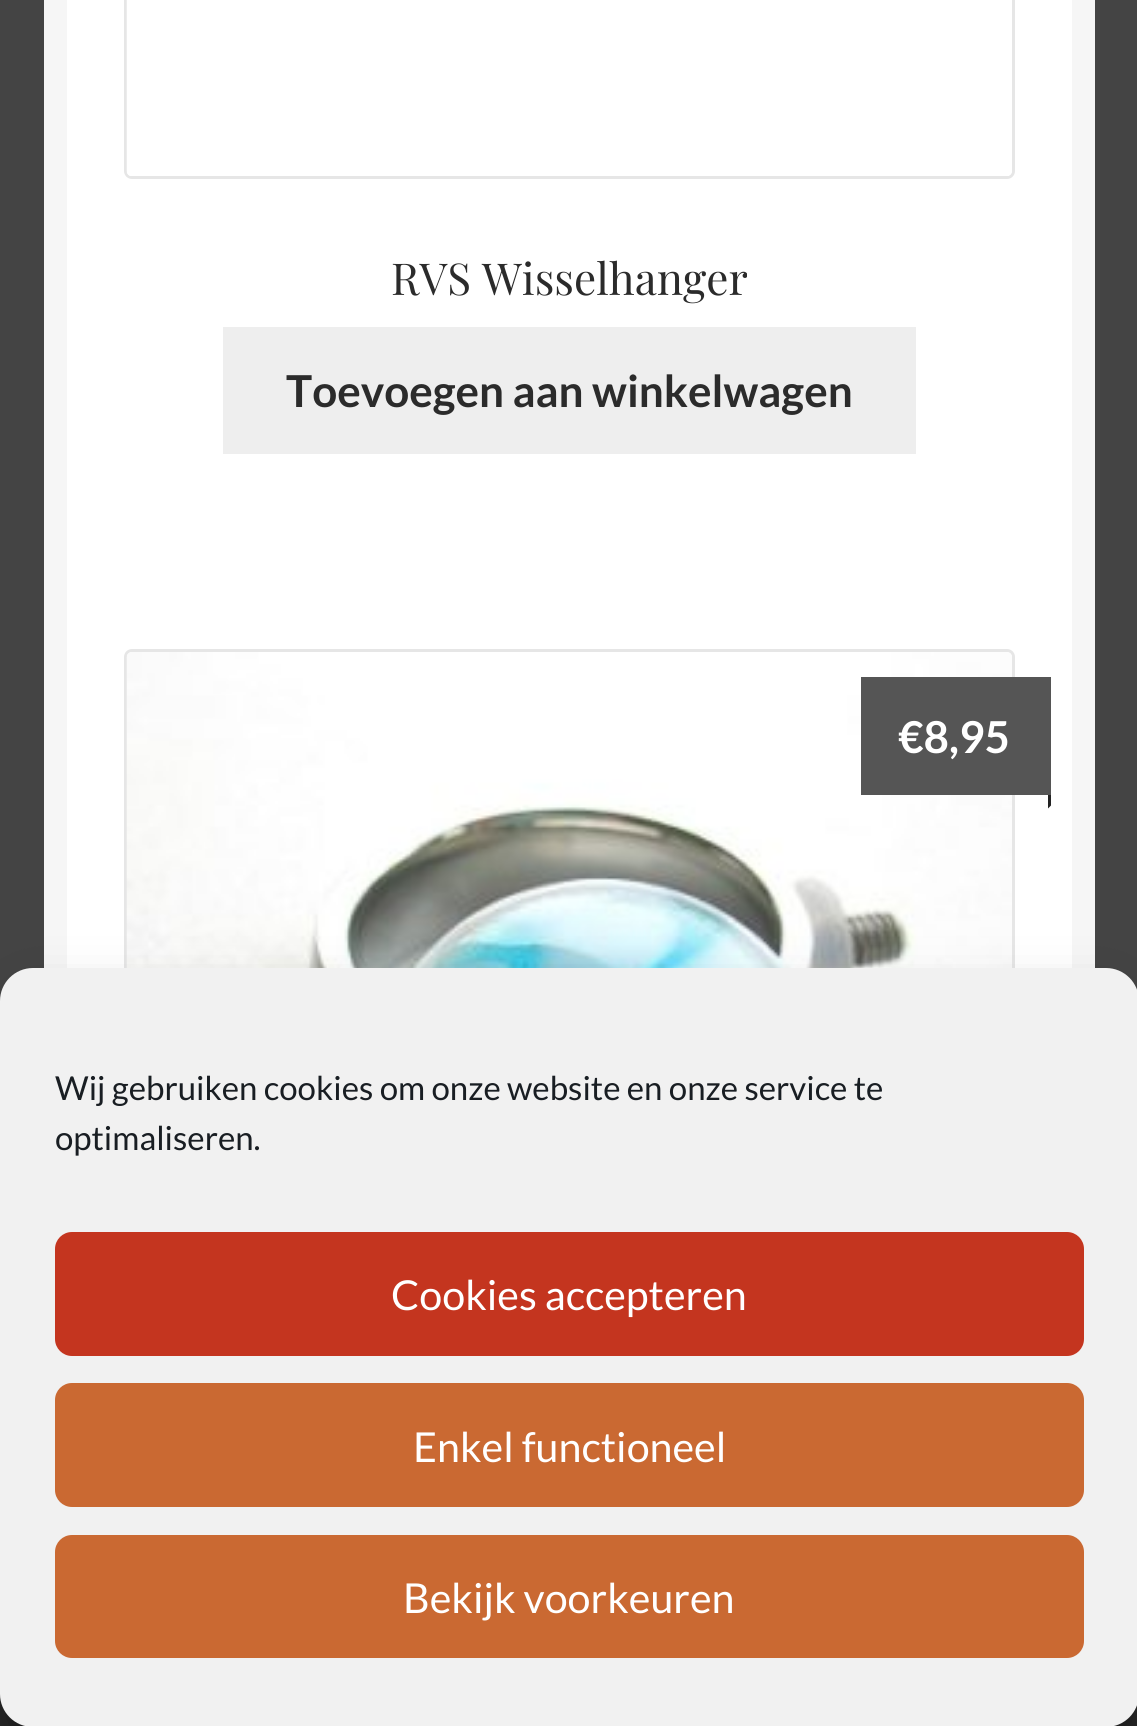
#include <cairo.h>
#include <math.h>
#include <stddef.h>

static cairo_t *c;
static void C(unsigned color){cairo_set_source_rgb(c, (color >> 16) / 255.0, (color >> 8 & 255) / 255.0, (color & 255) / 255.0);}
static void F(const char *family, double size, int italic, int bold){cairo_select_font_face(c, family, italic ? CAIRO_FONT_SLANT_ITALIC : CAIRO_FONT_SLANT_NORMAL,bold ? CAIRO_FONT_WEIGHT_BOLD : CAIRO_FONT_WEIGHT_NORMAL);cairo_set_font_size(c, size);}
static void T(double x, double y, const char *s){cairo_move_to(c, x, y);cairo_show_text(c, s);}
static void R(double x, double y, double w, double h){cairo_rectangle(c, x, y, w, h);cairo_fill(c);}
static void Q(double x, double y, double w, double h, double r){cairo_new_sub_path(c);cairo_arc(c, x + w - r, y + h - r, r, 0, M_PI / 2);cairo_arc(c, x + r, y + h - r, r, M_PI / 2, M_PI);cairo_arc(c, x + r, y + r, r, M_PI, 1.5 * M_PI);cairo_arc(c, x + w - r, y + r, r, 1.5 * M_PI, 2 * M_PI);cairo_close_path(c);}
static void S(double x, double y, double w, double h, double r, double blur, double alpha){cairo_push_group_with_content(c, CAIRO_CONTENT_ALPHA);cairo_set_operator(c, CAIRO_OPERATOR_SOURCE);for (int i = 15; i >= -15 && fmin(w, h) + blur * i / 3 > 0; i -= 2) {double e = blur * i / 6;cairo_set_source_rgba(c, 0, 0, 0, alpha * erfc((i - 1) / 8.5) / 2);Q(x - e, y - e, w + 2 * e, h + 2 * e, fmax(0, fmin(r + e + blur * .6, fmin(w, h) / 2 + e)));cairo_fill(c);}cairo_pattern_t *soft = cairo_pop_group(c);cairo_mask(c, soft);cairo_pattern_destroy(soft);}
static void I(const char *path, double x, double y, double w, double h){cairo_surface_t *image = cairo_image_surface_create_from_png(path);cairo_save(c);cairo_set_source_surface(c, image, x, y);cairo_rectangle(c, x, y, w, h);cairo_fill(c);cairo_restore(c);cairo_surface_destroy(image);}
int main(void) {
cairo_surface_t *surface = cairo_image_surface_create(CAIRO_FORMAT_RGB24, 1137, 1726);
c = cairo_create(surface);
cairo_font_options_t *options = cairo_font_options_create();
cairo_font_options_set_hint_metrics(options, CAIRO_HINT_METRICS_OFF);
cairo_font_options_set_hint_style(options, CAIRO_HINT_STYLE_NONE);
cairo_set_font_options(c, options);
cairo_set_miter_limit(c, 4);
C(0x444444);
cairo_paint(c);
C(0xffffff);
R(67,0,1005,968);
cairo_rectangle(c,55.5,-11.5,1028,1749);
C(0xf6f6f6);
cairo_set_line_width(c,23);
cairo_stroke(c);
Q(125.5,-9.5,888,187,6.5);
C(0xe6e6e6);
cairo_set_line_width(c,3);
cairo_stroke(c);
I("1.png",126,0,886,176);
F("Playfair Display",44,0,0);
C(0x2b2b2b);
T(391,295,"RVS Wisselhanger");
C(0xeeeeee);
R(223,327,693,127);
F("Lato",44,0,1);
C(0x2b2b2b);
T(286,407,"Toevoegen aan winkelwagen");
Q(125.5,650.5,888,888,6.5);
C(0xe6e6e6);
cairo_stroke(c);
I("2.png",126,652,886,316);
cairo_save(c);
cairo_rectangle(c,88,0,963,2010);
cairo_clip(c);
C(0x555555);
cairo_new_path(c);
cairo_move_to(c,875,795);
cairo_line_to(c,1062,795);
cairo_line_to(c,1062,677);
cairo_line_to(c,1048,677);
cairo_line_to(c,1048,795);
cairo_close_path(c);
cairo_fill(c);
cairo_restore(c);
C(0x555555);
R(861,677,187,118);
C(0xffffff);
T(898,753,"€8,95");
cairo_save(c);
cairo_rectangle(c,88,0,963,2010);
cairo_clip(c);
C(0x222222);
cairo_new_path(c);
cairo_move_to(c,1048,795);
cairo_line_to(c,1061.5,795);
cairo_line_to(c,1048,808.5);
cairo_close_path(c);
cairo_fill(c);
cairo_restore(c);
C(0x2b2b2b);
R(0,1694,25,32);
R(1114,1705,23,21);
C(0x000000);
S(0,985,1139,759,33,8,.23);
S(0,996,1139,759,33,27.5,.19);
C(0xf1f1f1);
Q(0,968,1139,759,33);
cairo_fill(c);
F("Lato",33,0,0);
C(0x191e23);
T(55,1100,"Wij gebruiken cookies om onze website en onze service te");
T(55,1150,"optimaliseren.");
C(0xc4351f);
Q(56.5,1233.5,1026,121,15.5);
cairo_fill_preserve(c);
cairo_stroke(c);
F("Lato",41.25,0,0);
C(0xffffff);
T(391,1310,"Cookies accepteren");
C(0xca6932);
Q(56.5,1384.5,1026,121,15.5);
cairo_fill_preserve(c);
cairo_stroke(c);
C(0xffffff);
T(413,1462,"Enkel functioneel");
C(0xca6932);
Q(56.5,1536.5,1026,120,15.5);
cairo_fill_preserve(c);
cairo_stroke(c);
C(0xffffff);
T(403,1613,"Bekijk voorkeuren");
cairo_surface_write_to_png(surface, "o.png");
cairo_font_options_destroy(options);
cairo_destroy(c);
cairo_surface_destroy(surface);
return 0;
}
